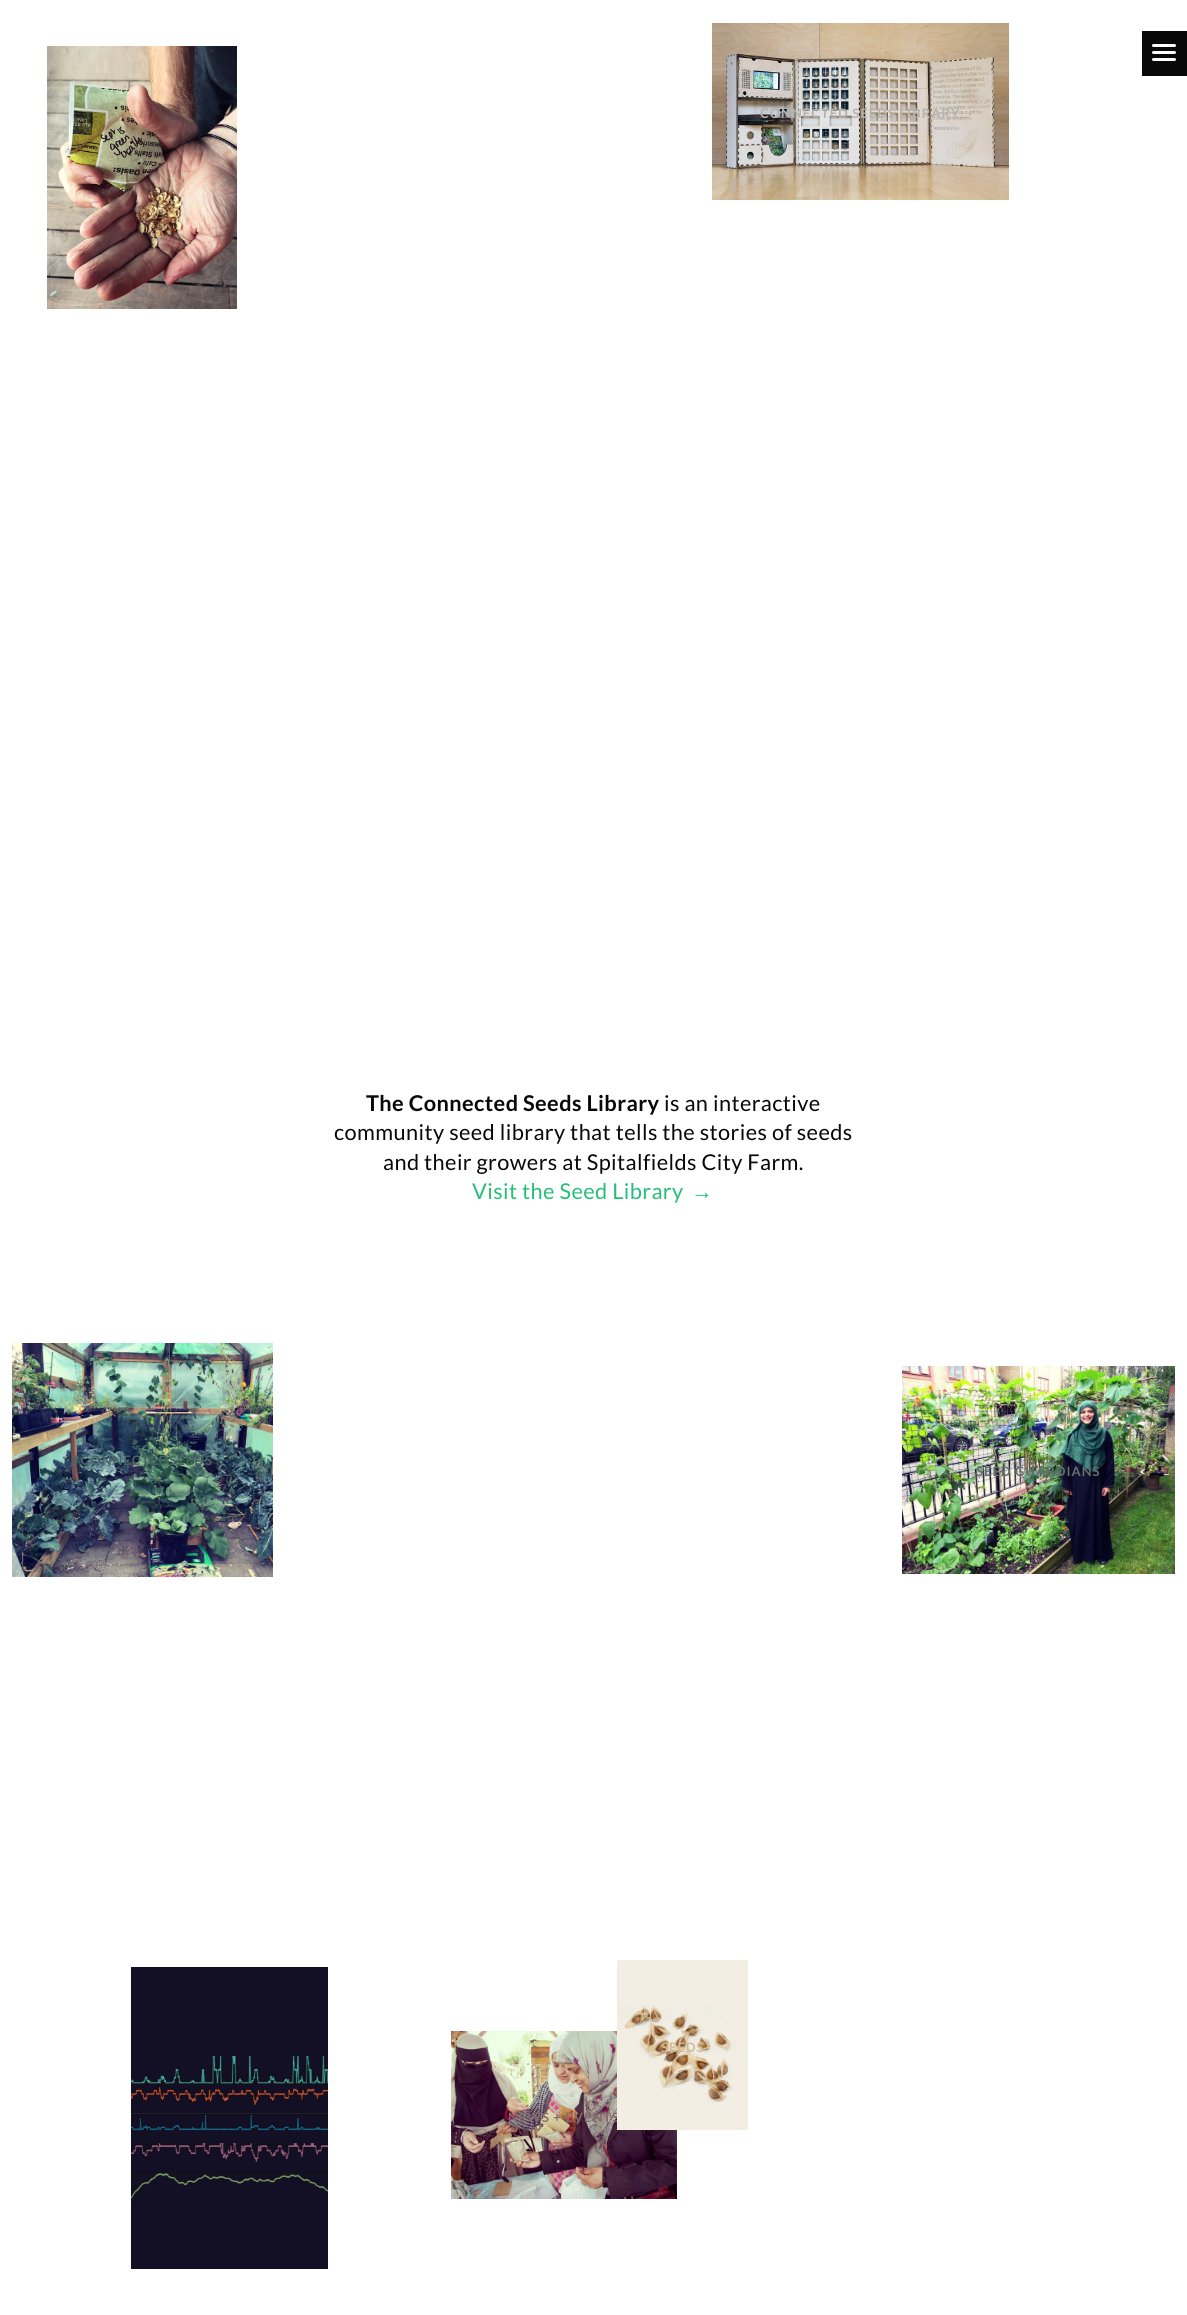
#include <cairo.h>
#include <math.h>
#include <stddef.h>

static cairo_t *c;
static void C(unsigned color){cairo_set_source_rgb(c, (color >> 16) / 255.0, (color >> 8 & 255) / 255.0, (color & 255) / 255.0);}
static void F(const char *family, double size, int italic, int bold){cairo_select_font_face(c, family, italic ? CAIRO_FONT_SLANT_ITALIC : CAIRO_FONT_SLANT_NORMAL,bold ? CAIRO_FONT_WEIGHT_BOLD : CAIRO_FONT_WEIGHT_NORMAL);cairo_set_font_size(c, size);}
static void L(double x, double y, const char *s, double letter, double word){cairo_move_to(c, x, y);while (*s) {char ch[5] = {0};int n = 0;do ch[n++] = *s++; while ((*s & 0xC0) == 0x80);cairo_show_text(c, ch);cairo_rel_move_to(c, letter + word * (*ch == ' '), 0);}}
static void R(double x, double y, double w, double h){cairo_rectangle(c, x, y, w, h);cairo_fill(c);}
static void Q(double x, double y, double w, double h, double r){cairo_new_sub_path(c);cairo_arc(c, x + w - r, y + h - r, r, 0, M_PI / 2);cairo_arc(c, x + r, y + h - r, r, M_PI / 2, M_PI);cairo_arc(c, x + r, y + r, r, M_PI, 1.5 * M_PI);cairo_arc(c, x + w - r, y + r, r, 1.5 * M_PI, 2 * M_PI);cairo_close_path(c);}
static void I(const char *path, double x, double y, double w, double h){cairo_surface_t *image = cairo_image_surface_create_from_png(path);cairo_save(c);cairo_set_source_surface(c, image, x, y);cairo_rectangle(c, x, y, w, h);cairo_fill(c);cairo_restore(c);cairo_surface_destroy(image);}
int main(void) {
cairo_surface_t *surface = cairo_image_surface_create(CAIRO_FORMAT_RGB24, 1187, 2315);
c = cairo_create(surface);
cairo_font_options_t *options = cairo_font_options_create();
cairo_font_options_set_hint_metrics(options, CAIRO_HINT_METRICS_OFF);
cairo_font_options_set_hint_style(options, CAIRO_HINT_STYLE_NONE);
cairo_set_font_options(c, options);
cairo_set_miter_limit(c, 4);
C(0xffffff);
cairo_paint(c);
C(0x080808);
R(1142,31,45,45);
C(0xffffff);
Q(1152,51,24,3,1.5);
cairo_fill(c);
Q(1152,44,24,3,1.5);
cairo_fill(c);
Q(1152,58,24,3,1.5);
cairo_fill(c);
I("1.png",712,23,297,177);
F("Lato",13,0,1);
C(0xb5b1ab);
L(760,118,"CONNECTED SEEDS LIBRARY",1,0);
I("2.png",47,46,190,263);
C(0x7b6759);
L(125,182,"I",1,0);
F("Lato",21.75,0,1);
C(0x080808);
L(366,1111,"The Connected Seeds Library",.4,0);
F("Lato",21.75,0,0);
L(664,1111,"is an interactive",.4,0);
L(334,1140,"community seed library that tells the stories of seeds",.4,0);
L(383,1170,"and their growers at Spitalfields City Farm.",.4,0);
C(0x27be79);
L(472,1199,"Visit the Seed Library",.4,0);
F("Liberation Sans",21.75,0,0);
L(691,1199,"→",.4,0);
I("3.png",12,1343,261,234);
F("Lato",13,0,1);
C(0x486566);
L(72,1465,"#CONNECTEDSEEDS",1,0);
I("4.png",902,1366,273,208);
C(0x63706c);
L(976,1476,"SEED GUARDIANS",1,0);
I("5.png",131,1967,197,302);
I("7.png",451,2031,226,168);
C(0x876b6c);
L(508,2122,"NEWS + EVENTS",1,0);
I("6.png",617,1960,131,170);
C(0xd0ba9c);
L(661,2052,"SEEDS",1,0);
cairo_surface_write_to_png(surface, "o.png");
cairo_font_options_destroy(options);
cairo_destroy(c);
cairo_surface_destroy(surface);
return 0;
}
